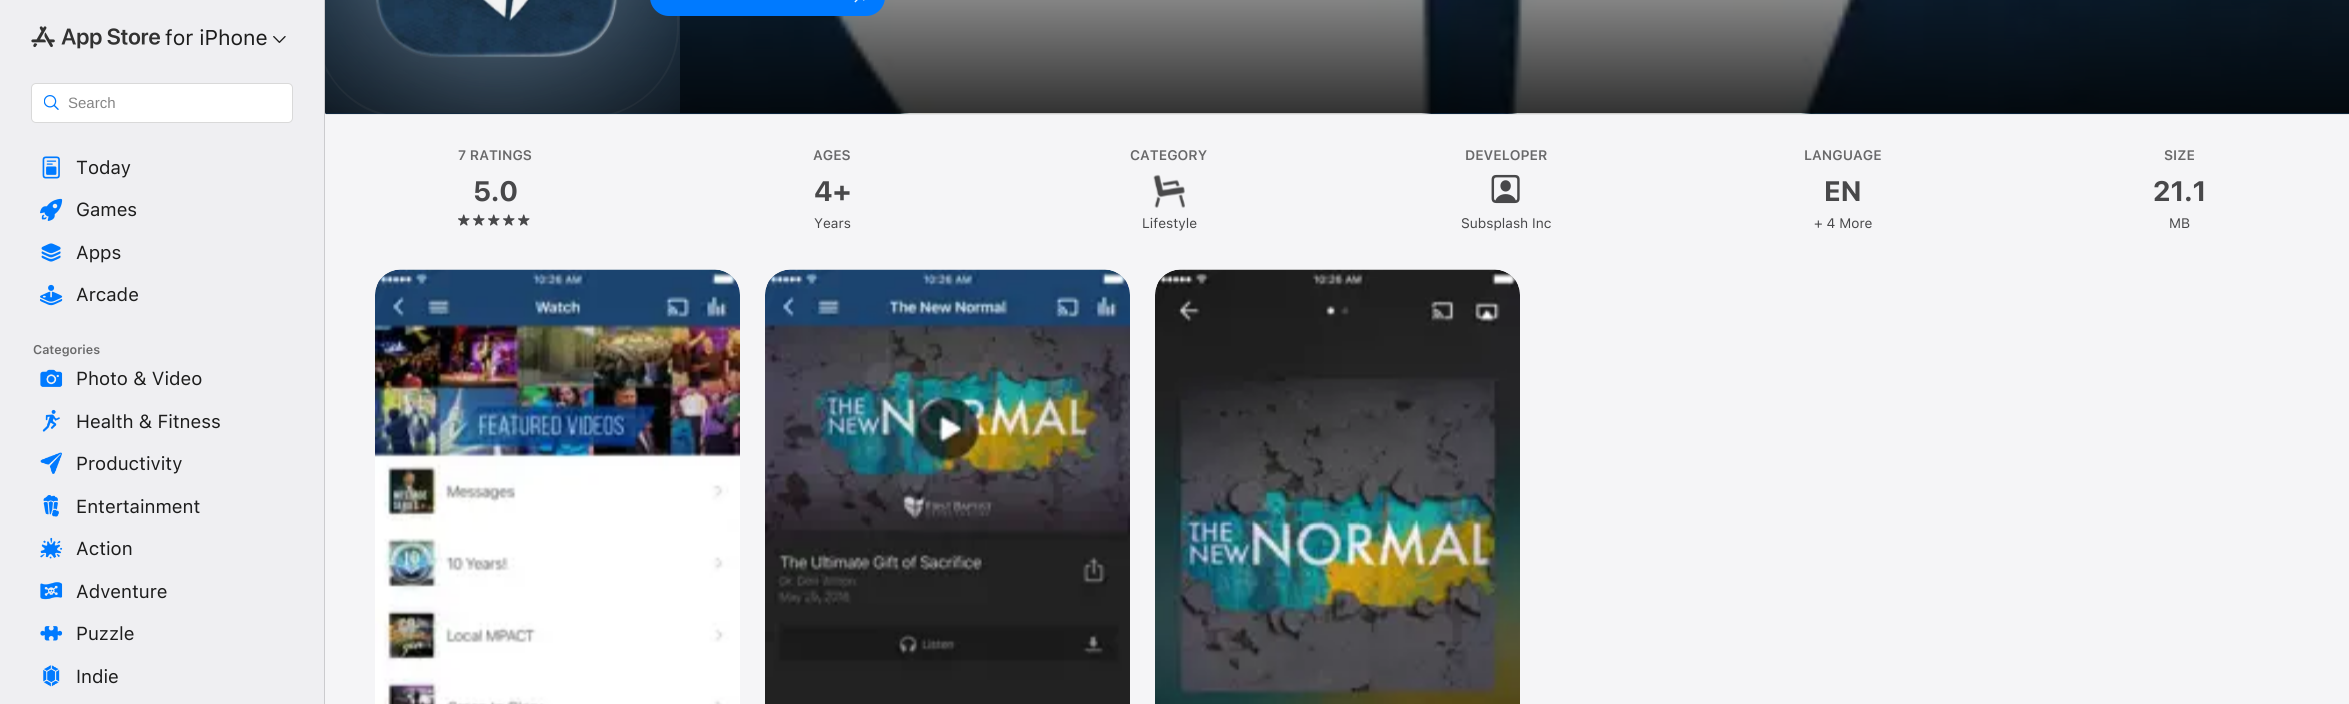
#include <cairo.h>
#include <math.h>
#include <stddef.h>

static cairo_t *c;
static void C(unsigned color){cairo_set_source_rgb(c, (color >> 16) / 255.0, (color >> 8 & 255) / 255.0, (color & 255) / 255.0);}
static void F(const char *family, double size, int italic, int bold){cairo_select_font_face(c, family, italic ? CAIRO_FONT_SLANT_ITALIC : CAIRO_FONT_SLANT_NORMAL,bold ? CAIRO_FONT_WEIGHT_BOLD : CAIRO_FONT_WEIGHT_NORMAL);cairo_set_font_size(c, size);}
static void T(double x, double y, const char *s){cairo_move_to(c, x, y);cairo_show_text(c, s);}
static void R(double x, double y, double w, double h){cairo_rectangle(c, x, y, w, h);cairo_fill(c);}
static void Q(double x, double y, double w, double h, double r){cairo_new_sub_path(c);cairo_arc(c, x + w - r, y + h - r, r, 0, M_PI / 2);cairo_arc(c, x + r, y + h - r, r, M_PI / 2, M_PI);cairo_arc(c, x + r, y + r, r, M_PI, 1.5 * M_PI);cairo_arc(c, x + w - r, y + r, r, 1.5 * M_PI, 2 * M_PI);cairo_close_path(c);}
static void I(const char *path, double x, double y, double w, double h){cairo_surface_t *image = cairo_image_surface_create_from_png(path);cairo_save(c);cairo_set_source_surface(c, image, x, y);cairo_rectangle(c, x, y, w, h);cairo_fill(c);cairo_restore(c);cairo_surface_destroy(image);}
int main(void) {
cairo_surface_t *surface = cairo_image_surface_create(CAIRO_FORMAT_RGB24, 2349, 704);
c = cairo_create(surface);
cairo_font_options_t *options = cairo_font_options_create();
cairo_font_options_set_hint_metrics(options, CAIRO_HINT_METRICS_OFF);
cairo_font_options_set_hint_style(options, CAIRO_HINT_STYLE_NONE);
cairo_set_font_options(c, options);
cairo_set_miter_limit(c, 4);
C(0xf5f5f7);
cairo_paint(c);
C(0xefeff2);
R(0,0,324,704);
C(0xcbcbce);
R(324,0,1,704);
I("1.png",31,26,129,23);
F("SF",21.25,0,0);
C(0x1d1d1d);
T(165,45,"for iPhone");
I("2.png",273,36,13,7);
C(0xffffff);
Q(31,83,262,40,5);
cairo_fill(c);
Q(31.5,83.5,261,39,4.5);
cairo_set_source_rgba(c,0,0,0,0.15);
cairo_set_line_width(c,1);
cairo_stroke(c);
I("3.png",44,95,15,15);
F("Liberation Sans",15,0,0);
C(0x858585);
T(68,108,"Search");
I("4.png",42,156,18,23);
F("SF",18.75,0,0);
C(0x1d1d1d);
T(76,174,"Today");
I("5.png",40,198,23,23);
T(76,216,"Games");
I("6.png",41,243,20,19);
T(76,259,"Apps");
I("7.png",40,284,23,22);
T(76,301,"Arcade");
F("SF SemiBold",12.5,0,0);
C(0x69696a);
T(33,354,"Categories");
I("8.png",40,369,23,18);
F("SF",18.75,0,0);
C(0x1d1d1d);
T(76,385,"Photo & Video");
I("9.png",42,409,18,23);
T(76,428,"Health & Fitness");
I("10.png",40,452,22,22);
T(76,470,"Productivity");
I("11.png",43,495,16,22);
T(76,513,"Entertainment");
I("12.png",40,537,23,22);
T(76,555,"Action");
I("13.png",40,582,23,18);
T(76,598,"Adventure");
I("14.png",40,626,23,15);
T(76,640,"Puzzle");
I("15.png",43,665,17,22);
T(76,683,"Indie");
I("16.png",325,0,2024,114);
C(0xe6e6e6);
R(326,114,2023,1);
I("17.png",325,0,355,114);
cairo_set_source_rgba(c,0.502,0.502,0.502,0.1);
cairo_set_fill_rule(c,CAIRO_FILL_RULE_EVEN_ODD);
cairo_new_path(c);
cairo_move_to(c,381,-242);
cairo_curve_to(c,360,-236,341,-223,330,-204);
cairo_curve_to(c,325,-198,325,-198,325,-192);
cairo_curve_to(c,337,-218,361,-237,390,-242);
cairo_close_path(c);
cairo_move_to(c,378,114);
cairo_line_to(c,386,114);
cairo_curve_to(c,359,108,336,89,325,64);
cairo_curve_to(c,325,71,326,71,331,78);
cairo_curve_to(c,342,95,359,108,378,114);
cairo_close_path(c);
cairo_move_to(c,616,114);
cairo_line_to(c,623,111);
cairo_curve_to(c,656,97,679,65,679,27);
cairo_line_to(c,679,-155);
cairo_curve_to(c,679,-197,651,-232,613,-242);
cairo_line_to(c,604,-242);
cairo_curve_to(c,646,-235,677,-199,677,-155);
cairo_line_to(c,677,27);
cairo_curve_to(c,677,69,648,105,608,114);
cairo_close_path(c);
cairo_fill(c);
I("18.png",376,0,241,57);
cairo_set_fill_rule(c,CAIRO_FILL_RULE_WINDING);
cairo_new_path(c);
cairo_move_to(c,436,-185);
cairo_line_to(c,557,-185);
cairo_curve_to(c,591,-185,618,-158,618,-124);
cairo_line_to(c,618,-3);
cairo_curve_to(c,618,31,591,58,557,58);
cairo_line_to(c,436,58);
cairo_curve_to(c,402,58,375,31,375,-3);
cairo_line_to(c,375,-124);
cairo_curve_to(c,375,-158,402,-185,436,-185);
cairo_close_path(c);
cairo_fill(c);
C(0x007aff);
Q(650,-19,235,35,19);
cairo_fill(c);
I("19.png",854,0,11,3);
F("SF SemiBold",13.75,0,0);
C(0x69696a);
T(458,160,"7 RATINGS");
F("SF",28,0,1);
C(0x48484a);
T(473,201,"5.0");
I("20.png",458,214,12,12);
I("20.png",473,214,12,12);
I("20.png",488,214,12,12);
I("20.png",503,214,12,12);
I("20.png",518,214,12,12);
F("SF SemiBold",13.75,0,0);
C(0x69696a);
T(813,160,"AGES");
F("SF",28,0,1);
C(0x48484a);
T(814,201,"4+");
F("SF",13.75,0,0);
T(814,228,"Years");
F("SF SemiBold",13.75,0,0);
C(0x69696a);
T(1130,160,"CATEGORY");
I("21.png",1153,174,32,34);
F("SF",13.75,0,0);
C(0x48484a);
T(1142,228,"Lifestyle");
F("SF SemiBold",13.75,0,0);
C(0x69696a);
T(1465,160,"DEVELOPER");
I("22.png",1491,174,29,30);
F("SF",13.75,0,0);
C(0x48484a);
T(1461,228,"Subsplash Inc");
F("SF SemiBold",13.75,0,0);
C(0x69696a);
T(1804,160,"LANGUAGE");
F("SF",28,0,1);
C(0x48484a);
T(1824,201,"EN");
F("SF",13.75,0,0);
T(1814,228,"+ 4 More");
F("SF SemiBold",13.75,0,0);
C(0x69696a);
T(2164,160,"SIZE");
F("SF",28,0,1);
C(0x48484a);
T(2153,201,"21.1");
F("SF",13.75,0,0);
T(2169,228,"MB");
I("23.png",375,269,365,435);
I("24.png",765,269,365,435);
I("25.png",1155,269,365,435);
cairo_surface_write_to_png(surface, "o.png");
cairo_font_options_destroy(options);
cairo_destroy(c);
cairo_surface_destroy(surface);
return 0;
}
